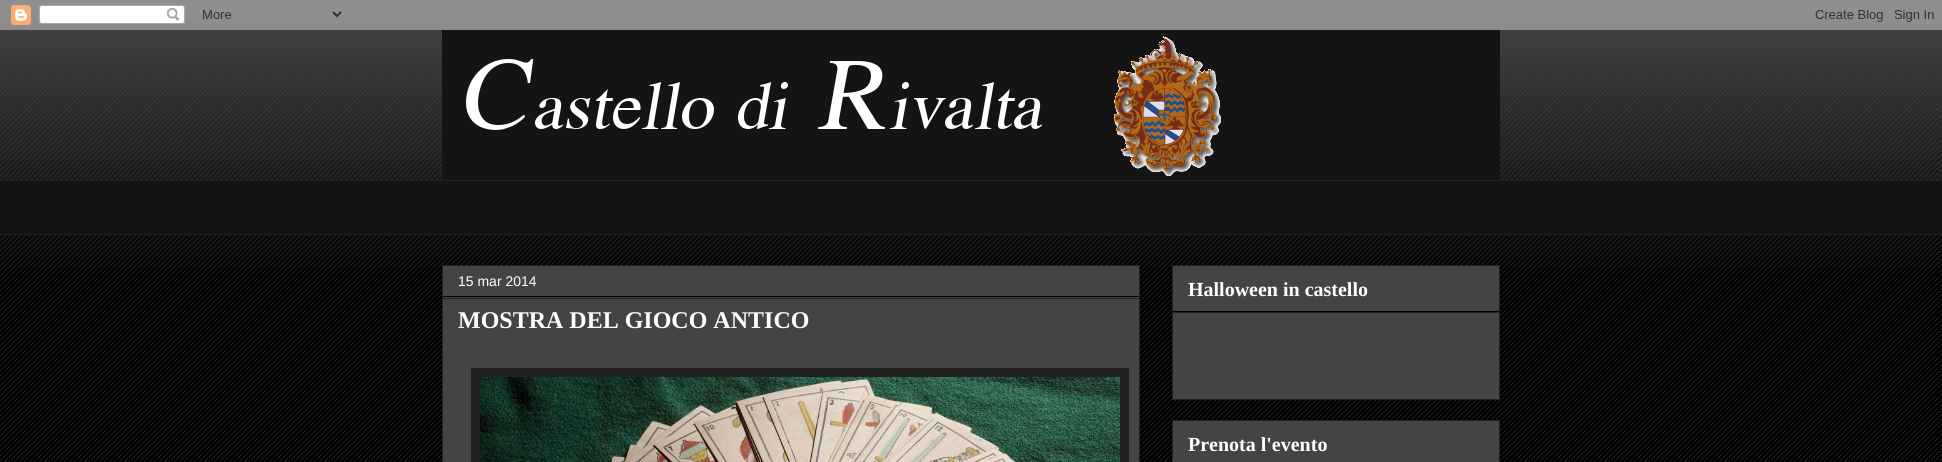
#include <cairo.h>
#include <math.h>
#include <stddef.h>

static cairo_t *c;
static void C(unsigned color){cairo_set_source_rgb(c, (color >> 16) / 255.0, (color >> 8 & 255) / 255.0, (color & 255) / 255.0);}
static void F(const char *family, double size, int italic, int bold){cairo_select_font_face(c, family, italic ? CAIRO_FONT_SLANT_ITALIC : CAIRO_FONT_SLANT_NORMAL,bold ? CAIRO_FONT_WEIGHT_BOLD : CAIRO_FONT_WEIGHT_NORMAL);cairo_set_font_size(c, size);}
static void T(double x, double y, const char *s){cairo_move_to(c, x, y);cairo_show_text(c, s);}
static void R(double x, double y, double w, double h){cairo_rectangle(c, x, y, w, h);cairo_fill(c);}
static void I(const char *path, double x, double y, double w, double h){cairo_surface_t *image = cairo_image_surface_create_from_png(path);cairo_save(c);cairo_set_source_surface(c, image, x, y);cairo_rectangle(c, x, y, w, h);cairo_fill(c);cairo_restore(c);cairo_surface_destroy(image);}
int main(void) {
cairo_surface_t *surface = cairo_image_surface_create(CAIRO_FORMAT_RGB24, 1942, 462);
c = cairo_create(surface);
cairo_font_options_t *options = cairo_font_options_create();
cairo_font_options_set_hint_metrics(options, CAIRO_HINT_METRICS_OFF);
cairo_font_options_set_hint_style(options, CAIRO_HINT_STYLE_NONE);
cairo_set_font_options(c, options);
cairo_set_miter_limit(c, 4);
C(0x000000);
cairo_paint(c);
I("1.png",0,13,1942,449);
I("2.png",0,0,1942,268);
I("3.png",0,0,1942,30);
I("4.png",442,30,1058,150);
C(0x141414);
R(0,181,1942,53);
C(0x222222);
R(0,180,1942,1);
R(0,234,1942,1);
C(0x444444);
cairo_rectangle(c,442.5,265.5,697,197);
cairo_fill_preserve(c);
C(0x222222);
cairo_set_line_width(c,1);
cairo_stroke(c);
C(0x000000);
R(443,296,696,1);
F("Liberation Sans",14,0,0);
C(0xffffff);
T(458,286,"15 mar 2014");
C(0x222222);
R(443,298,696,1);
F("Liberation Serif",24,0,1);
C(0xffffff);
T(458,328,"MOSTRA DEL GIOCO ANTICO");
C(0x222222);
R(471,368,658,94);
I("5.png",480,377,640,85);
C(0x444444);
cairo_rectangle(c,1172.5,265.5,327,134);
cairo_fill_preserve(c);
C(0x222222);
cairo_stroke(c);
C(0x000000);
R(1173,311,326,1);
F("Liberation Serif",20,0,1);
C(0xffffff);
T(1188,296,"Halloween in castello");
C(0x222222);
R(1173,312,326,1);
C(0x444444);
cairo_rectangle(c,1172.5,420.5,327,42);
cairo_fill_preserve(c);
C(0x222222);
cairo_stroke(c);
C(0xffffff);
T(1188,451,"Prenota l'evento");
cairo_surface_write_to_png(surface, "o.png");
cairo_font_options_destroy(options);
cairo_destroy(c);
cairo_surface_destroy(surface);
return 0;
}
